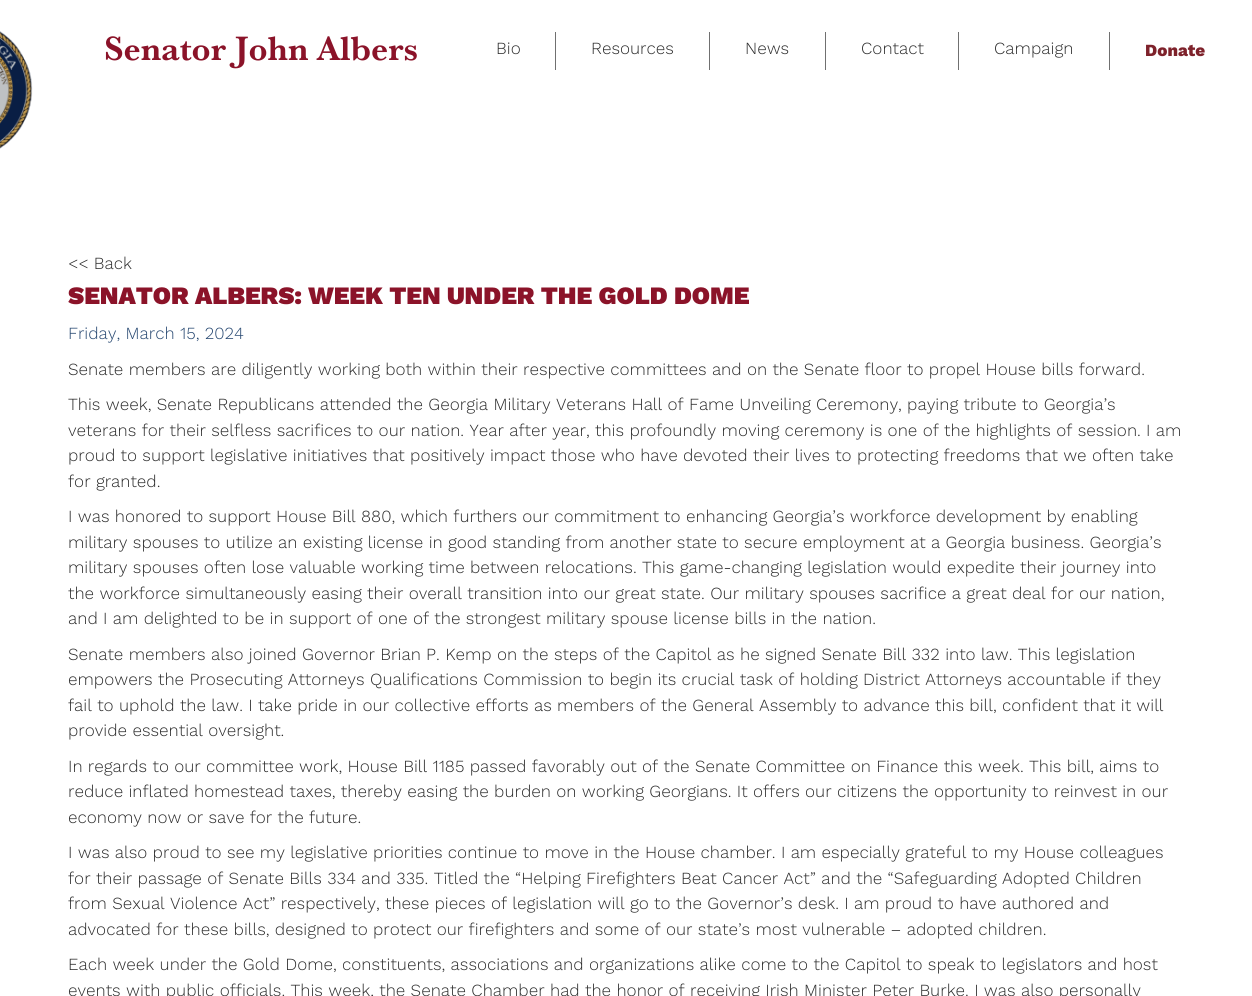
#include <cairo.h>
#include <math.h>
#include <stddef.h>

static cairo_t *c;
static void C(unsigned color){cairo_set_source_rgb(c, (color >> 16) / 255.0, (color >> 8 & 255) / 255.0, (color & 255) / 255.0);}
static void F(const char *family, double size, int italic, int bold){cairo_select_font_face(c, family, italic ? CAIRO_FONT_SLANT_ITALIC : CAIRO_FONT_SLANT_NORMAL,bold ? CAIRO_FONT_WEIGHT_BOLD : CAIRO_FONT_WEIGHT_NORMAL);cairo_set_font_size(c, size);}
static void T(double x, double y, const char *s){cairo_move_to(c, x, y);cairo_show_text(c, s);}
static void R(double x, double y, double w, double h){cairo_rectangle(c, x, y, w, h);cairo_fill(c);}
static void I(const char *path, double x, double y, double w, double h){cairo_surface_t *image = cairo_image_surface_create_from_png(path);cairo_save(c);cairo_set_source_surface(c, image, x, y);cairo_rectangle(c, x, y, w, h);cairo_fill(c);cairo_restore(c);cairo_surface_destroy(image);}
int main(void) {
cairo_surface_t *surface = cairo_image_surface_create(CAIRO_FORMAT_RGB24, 1252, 996);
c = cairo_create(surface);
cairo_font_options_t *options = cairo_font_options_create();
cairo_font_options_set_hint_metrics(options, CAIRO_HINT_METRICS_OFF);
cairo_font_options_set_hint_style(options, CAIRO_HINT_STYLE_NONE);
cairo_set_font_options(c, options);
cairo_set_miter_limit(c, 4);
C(0xffffff);
cairo_paint(c);
I("1.png",0,31,33,118);
F("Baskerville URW",35,0,1);
C(0x8b1329);
T(104,60,"Senator John Albers");
C(0x707070);
R(555,32,1,38);
F("Work Sans Light",17,0,0);
C(0x2c2c2c);
T(496,54,"Bio");
C(0x707070);
R(709,32,1,38);
C(0x2c2c2c);
T(591,54,"Resources");
C(0x707070);
R(825,32,1,38);
C(0x2c2c2c);
T(745,54,"News");
C(0x707070);
R(958,32,1,38);
C(0x2c2c2c);
T(861,54,"Contact");
C(0x707070);
R(1109,32,1,38);
C(0x2c2c2c);
T(994,54,"Campaign");
F("Work Sans ExtraBold",17,0,0);
C(0x7e222b);
T(1145,56,"Donate");
F("Work Sans Light",17,0,0);
C(0x2c2c2c);
T(68,269,"<< Back");
F("Work Sans Black",25,0,0);
C(0x8b1329);
T(68,304,"SENATOR ALBERS: WEEK TEN UNDER THE GOLD DOME");
F("Work Sans Light",17,0,0);
C(0x274871);
T(68,339,"Friday, March 15, 2024");
C(0x2c2c2c);
T(68,375,"Senate members are diligently working both within their respective committees and on the Senate floor to propel House bills forward.");
T(68,410,"This week, Senate Republicans attended the Georgia Military Veterans Hall of Fame Unveiling Ceremony, paying tribute to Georgia’s");
T(68,436,"veterans for their selfless sacrifices to our nation. Year after year, this profoundly moving ceremony is one of the highlights of session. I am");
T(68,461,"proud to support legislative initiatives that positively impact those who have devoted their lives to protecting freedoms that we often take");
T(68,487,"for granted.");
T(68,522,"I was honored to support House Bill 880, which furthers our commitment to enhancing Georgia’s workforce development by enabling");
T(68,548,"military spouses to utilize an existing license in good standing from another state to secure employment at a Georgia business. Georgia’s");
T(68,573,"military spouses often lose valuable working time between relocations. This game-changing legislation would expedite their journey into");
T(68,599,"the workforce simultaneously easing their overall transition into our great state. Our military spouses sacrifice a great deal for our nation,");
T(68,624,"and I am delighted to be in support of one of the strongest military spouse license bills in the nation.");
T(68,660,"Senate members also joined Governor Brian P. Kemp on the steps of the Capitol as he signed Senate Bill 332 into law. This legislation");
T(68,685,"empowers the Prosecuting Attorneys Qualifications Commission to begin its crucial task of holding District Attorneys accountable if they");
T(68,711,"fail to uphold the law. I take pride in our collective efforts as members of the General Assembly to advance this bill, confident that it will");
T(68,736,"provide essential oversight.");
T(68,772,"In regards to our committee work, House Bill 1185 passed favorably out of the Senate Committee on Finance this week. This bill, aims to");
T(68,797,"reduce inflated homestead taxes, thereby easing the burden on working Georgians. It offers our citizens the opportunity to reinvest in our");
T(68,823,"economy now or save for the future.");
T(68,858,"I was also proud to see my legislative priorities continue to move in the House chamber. I am especially grateful to my House colleagues");
T(68,884,"for their passage of Senate Bills 334 and 335. Titled the “Helping Firefighters Beat Cancer Act” and the “Safeguarding Adopted Children");
T(68,909,"from Sexual Violence Act” respectively, these pieces of legislation will go to the Governor’s desk. I am proud to have authored and");
T(68,935,"advocated for these bills, designed to protect our firefighters and some of our state’s most vulnerable – adopted children.");
T(68,970,"Each week under the Gold Dome, constituents, associations and organizations alike come to the Capitol to speak to legislators and host");
T(68,996,"events with public officials. This week, the Senate Chamber had the honor of receiving Irish Minister Peter Burke. I was also personally");
cairo_surface_write_to_png(surface, "o.png");
cairo_font_options_destroy(options);
cairo_destroy(c);
cairo_surface_destroy(surface);
return 0;
}
